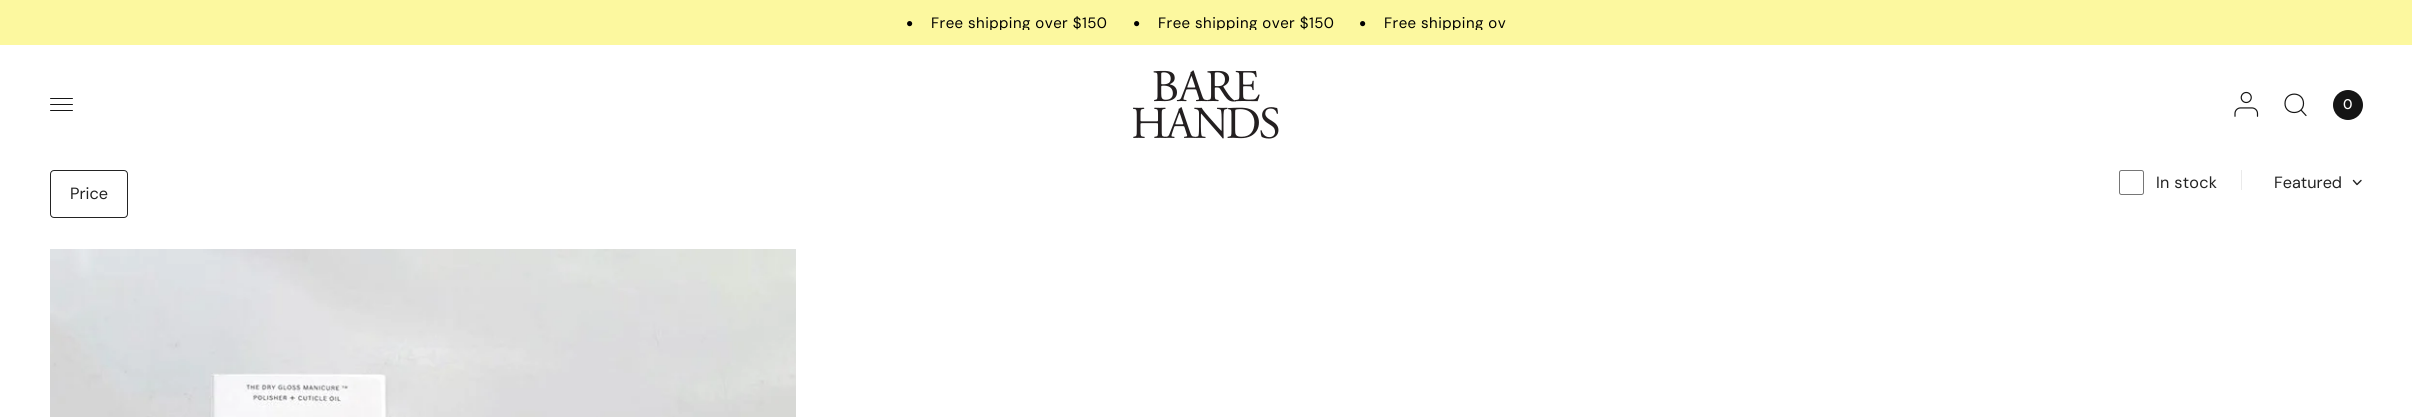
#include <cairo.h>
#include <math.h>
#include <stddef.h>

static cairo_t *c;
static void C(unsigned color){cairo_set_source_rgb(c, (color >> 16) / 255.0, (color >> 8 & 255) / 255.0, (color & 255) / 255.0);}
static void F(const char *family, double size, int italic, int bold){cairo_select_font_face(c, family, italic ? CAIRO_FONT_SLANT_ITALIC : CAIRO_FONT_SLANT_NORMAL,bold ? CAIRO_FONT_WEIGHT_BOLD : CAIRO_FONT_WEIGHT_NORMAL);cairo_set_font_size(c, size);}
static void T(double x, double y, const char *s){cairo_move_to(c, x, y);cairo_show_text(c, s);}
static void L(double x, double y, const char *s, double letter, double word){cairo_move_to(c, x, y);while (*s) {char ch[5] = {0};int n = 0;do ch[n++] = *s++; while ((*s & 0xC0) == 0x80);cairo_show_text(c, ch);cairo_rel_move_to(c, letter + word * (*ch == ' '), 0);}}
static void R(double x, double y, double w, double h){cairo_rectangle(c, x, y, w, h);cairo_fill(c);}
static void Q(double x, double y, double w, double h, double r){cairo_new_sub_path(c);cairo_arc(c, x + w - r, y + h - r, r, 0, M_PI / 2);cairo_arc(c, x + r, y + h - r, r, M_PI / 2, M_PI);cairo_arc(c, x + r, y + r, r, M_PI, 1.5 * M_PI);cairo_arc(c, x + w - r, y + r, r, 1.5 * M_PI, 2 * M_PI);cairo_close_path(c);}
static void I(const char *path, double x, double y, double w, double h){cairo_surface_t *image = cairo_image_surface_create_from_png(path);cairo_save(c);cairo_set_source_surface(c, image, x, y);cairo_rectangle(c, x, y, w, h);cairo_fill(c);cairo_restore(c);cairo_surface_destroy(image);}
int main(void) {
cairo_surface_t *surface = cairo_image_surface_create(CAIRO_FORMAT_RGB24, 2412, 417);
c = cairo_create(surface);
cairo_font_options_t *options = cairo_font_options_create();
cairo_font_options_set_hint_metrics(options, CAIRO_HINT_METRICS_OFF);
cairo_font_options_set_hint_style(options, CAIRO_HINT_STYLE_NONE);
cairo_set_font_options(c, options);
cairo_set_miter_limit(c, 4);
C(0xffffff);
cairo_paint(c);
C(0xfcf89f);
R(0,0,2412,45);
F("Liberation Sans",12,0,0);
C(0x000000);
L(906,27,"●",.45,0);
cairo_save(c);
cairo_rectangle(c,906,15,600,15);
cairo_clip(c);
F("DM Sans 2",15,0,0);
L(931,28,"Free shipping over $150",.45,0);
cairo_restore(c);
L(1133,27,"●",.45,0);
cairo_save(c);
cairo_rectangle(c,906,15,600,15);
cairo_clip(c);
F("DM Sans 2",15,0,0);
L(1158,28,"Free shipping over $150",.45,0);
cairo_restore(c);
L(1359,27,"●",.45,0);
cairo_save(c);
cairo_rectangle(c,906,15,600,15);
cairo_clip(c);
F("DM Sans 2",15,0,0);
L(1384,28,"Free shipping ov",.45,0);
cairo_restore(c);
C(0x151515);
Q(50,98,23,1,.5);
cairo_fill(c);
Q(50,104,23,1,.5);
cairo_fill(c);
Q(50,110,23,1,.5);
cairo_fill(c);
I("1.png",1133,70,146,69);
I("2.png",2234,91,25,26);
cairo_new_path(c);
cairo_move_to(c,2301,110);
cairo_line_to(c,2306,115.5);
cairo_move_to(c,2303.5,103.5);
cairo_curve_to(c,2303.5,115.5,2285,115.5,2285,103.5);
cairo_curve_to(c,2285,91,2303.5,91,2303.5,103.5);
cairo_close_path(c);
cairo_set_line_width(c,1.2);
cairo_set_line_cap(c,CAIRO_LINE_CAP_ROUND);
cairo_set_line_join(c,CAIRO_LINE_JOIN_ROUND);
cairo_stroke(c);
cairo_arc(c,2348,105,15,0,2 * M_PI);
cairo_fill(c);
F("DM Sans Medium",14,0,0);
C(0xffffff);
T(2343,109,"0");
Q(2119.5,170.5,24,24,2);
C(0x767676);
cairo_set_line_width(c,1);
cairo_set_line_cap(c,CAIRO_LINE_CAP_BUTT);
cairo_set_line_join(c,CAIRO_LINE_JOIN_MITER);
cairo_stroke(c);
F("DM Sans",16.25,0,0);
C(0x232323);
L(2156,188,"In stock",.25,0);
C(0xeaeaea);
R(2241,170,1,20);
C(0x232323);
T(2274,188,"Featured");
cairo_new_path(c);
cairo_move_to(c,2361,180.5);
cairo_line_to(c,2357,184.5);
cairo_line_to(c,2353.5,180.5);
cairo_set_line_width(c,1.4);
cairo_set_line_cap(c,CAIRO_LINE_CAP_ROUND);
cairo_set_line_join(c,CAIRO_LINE_JOIN_ROUND);
cairo_stroke(c);
Q(50.5,170.5,77,47,3.5);
cairo_set_line_width(c,1);
cairo_set_line_cap(c,CAIRO_LINE_CAP_BUTT);
cairo_set_line_join(c,CAIRO_LINE_JOIN_MITER);
cairo_stroke(c);
T(70,199,"Price");
I("3.png",50,249,746,168);
cairo_surface_write_to_png(surface, "o.png");
cairo_font_options_destroy(options);
cairo_destroy(c);
cairo_surface_destroy(surface);
return 0;
}
